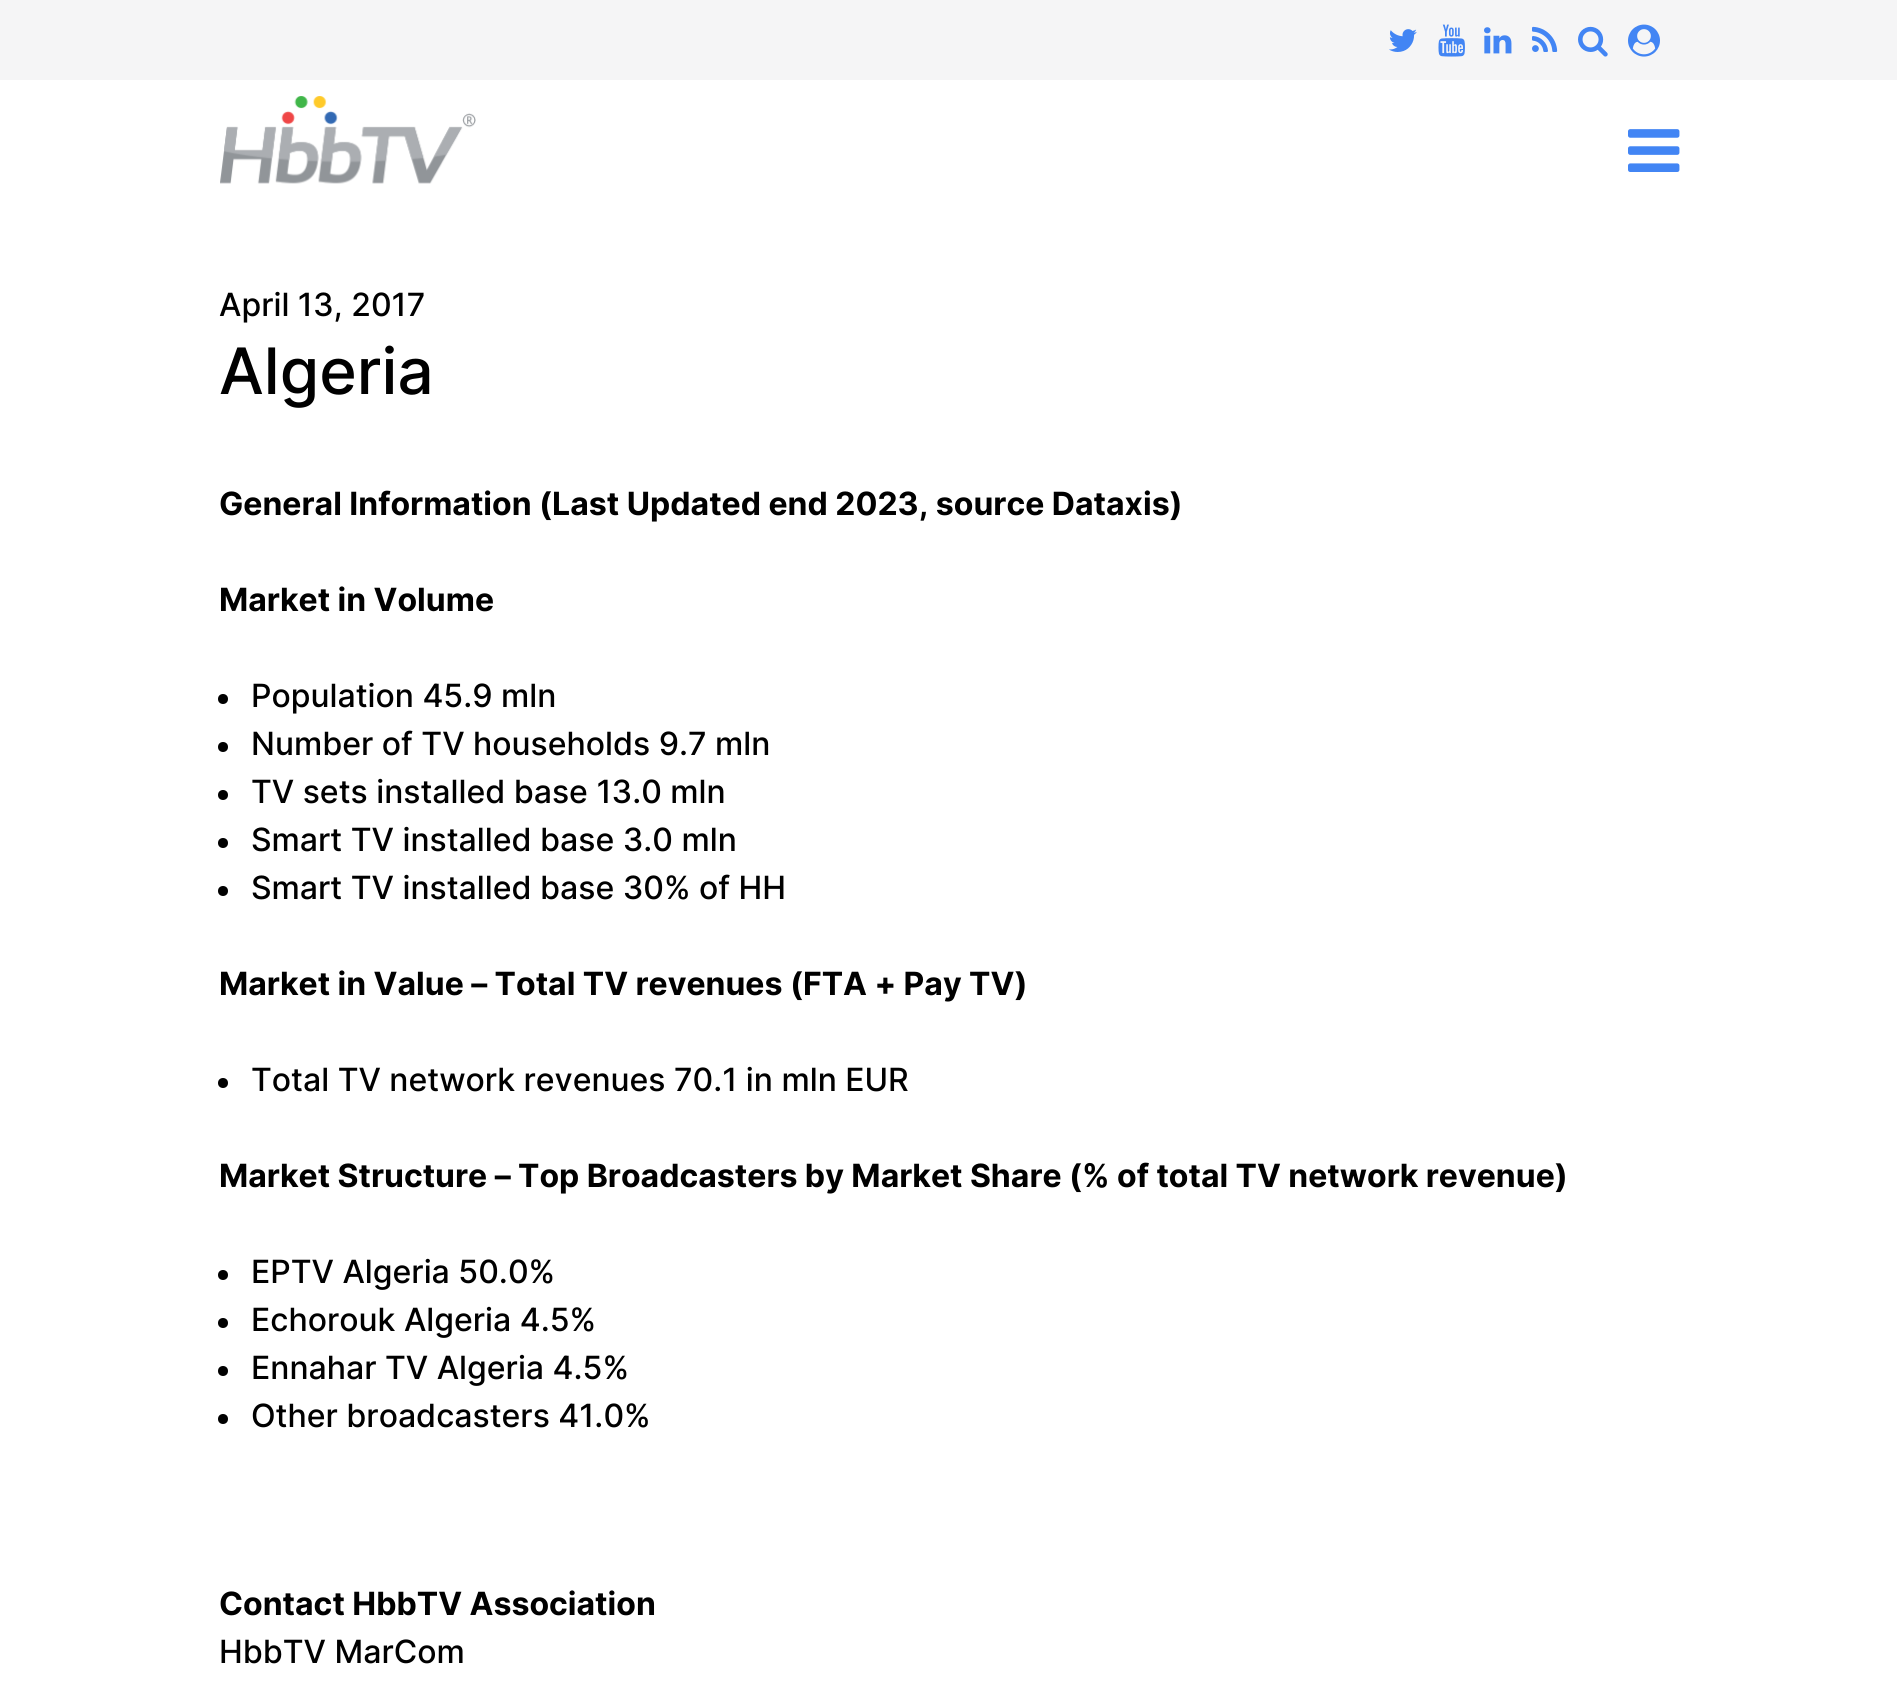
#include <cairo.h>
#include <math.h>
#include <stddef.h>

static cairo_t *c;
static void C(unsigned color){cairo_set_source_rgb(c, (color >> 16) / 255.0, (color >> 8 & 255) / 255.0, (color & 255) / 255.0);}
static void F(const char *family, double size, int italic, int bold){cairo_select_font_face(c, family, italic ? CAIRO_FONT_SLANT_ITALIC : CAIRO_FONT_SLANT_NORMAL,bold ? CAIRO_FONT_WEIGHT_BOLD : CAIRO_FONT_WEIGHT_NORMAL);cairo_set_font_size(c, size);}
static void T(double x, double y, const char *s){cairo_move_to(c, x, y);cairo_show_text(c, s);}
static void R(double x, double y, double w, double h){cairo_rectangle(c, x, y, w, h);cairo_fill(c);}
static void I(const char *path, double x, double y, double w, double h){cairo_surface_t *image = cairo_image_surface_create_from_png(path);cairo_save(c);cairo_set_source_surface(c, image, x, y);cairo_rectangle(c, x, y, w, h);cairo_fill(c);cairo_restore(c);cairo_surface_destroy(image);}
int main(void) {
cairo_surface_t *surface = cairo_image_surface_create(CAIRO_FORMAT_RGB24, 1897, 1688);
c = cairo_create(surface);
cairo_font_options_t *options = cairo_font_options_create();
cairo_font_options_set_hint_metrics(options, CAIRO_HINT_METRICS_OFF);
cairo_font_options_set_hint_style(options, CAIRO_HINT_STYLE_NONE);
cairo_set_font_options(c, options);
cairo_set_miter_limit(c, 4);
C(0xffffff);
cairo_paint(c);
C(0xf5f5f6);
R(0,0,1897,80);
I("1.png",1389,29,28,23);
I("2.png",1438,24,27,33);
I("3.png",1484,27,28,27);
I("4.png",1532,26,26,26);
I("5.png",1578,26,30,31);
I("6.png",1628,24,32,33);
I("7.png",220,96,256,88);
I("8.png",1628,129,52,43);
F("Inter Medium",32,0,0);
C(0x000000);
T(219,316,"April 13, 2017");
F("Inter Medium",64,0,0);
T(219,394,"Algeria");
F("Inter",32,0,1);
T(219,515,"General Information (Last Updated end 2023, source Dataxis)");
T(219,611,"Market in Volume");
cairo_new_path(c);
cairo_arc(c,223,699,5,0,2 * M_PI);
cairo_fill(c);
F("Inter Medium",32,0,0);
T(251,707,"Population 45.9 mln");
cairo_new_path(c);
cairo_arc(c,223,747,5,0,2 * M_PI);
cairo_fill(c);
T(251,755,"Number of TV households 9.7 mln");
cairo_new_path(c);
cairo_arc(c,223,795,5,0,2 * M_PI);
cairo_fill(c);
T(251,803,"TV sets installed base 13.0 mln");
cairo_new_path(c);
cairo_arc(c,223,843,5,0,2 * M_PI);
cairo_fill(c);
T(251,851,"Smart TV installed base 3.0 mln");
cairo_new_path(c);
cairo_arc(c,223,891,5,0,2 * M_PI);
cairo_fill(c);
T(251,899,"Smart TV installed base 30% of HH");
F("Inter",32,0,1);
T(219,995,"Market in Value – Total TV revenues (FTA + Pay TV)");
cairo_new_path(c);
cairo_arc(c,223,1083,5,0,2 * M_PI);
cairo_fill(c);
F("Inter Medium",32,0,0);
T(251,1091,"Total TV network revenues 70.1 in mln EUR");
F("Inter",32,0,1);
T(219,1187,"Market Structure – Top Broadcasters by Market Share (% of total TV network revenue)");
cairo_new_path(c);
cairo_arc(c,223,1275,5,0,2 * M_PI);
cairo_fill(c);
F("Inter Medium",32,0,0);
T(251,1283,"EPTV Algeria 50.0%");
cairo_new_path(c);
cairo_arc(c,223,1323,5,0,2 * M_PI);
cairo_fill(c);
T(251,1331,"Echorouk Algeria 4.5%");
cairo_new_path(c);
cairo_arc(c,223,1371,5,0,2 * M_PI);
cairo_fill(c);
T(251,1379,"Ennahar TV Algeria 4.5%");
cairo_new_path(c);
cairo_arc(c,223,1419,5,0,2 * M_PI);
cairo_fill(c);
T(251,1427,"Other broadcasters 41.0%");
F("Inter",32,0,1);
T(219,1615,"Contact HbbTV Association");
F("Inter Medium",32,0,0);
T(219,1663,"HbbTV MarCom");
cairo_surface_write_to_png(surface, "o.png");
cairo_font_options_destroy(options);
cairo_destroy(c);
cairo_surface_destroy(surface);
return 0;
}
